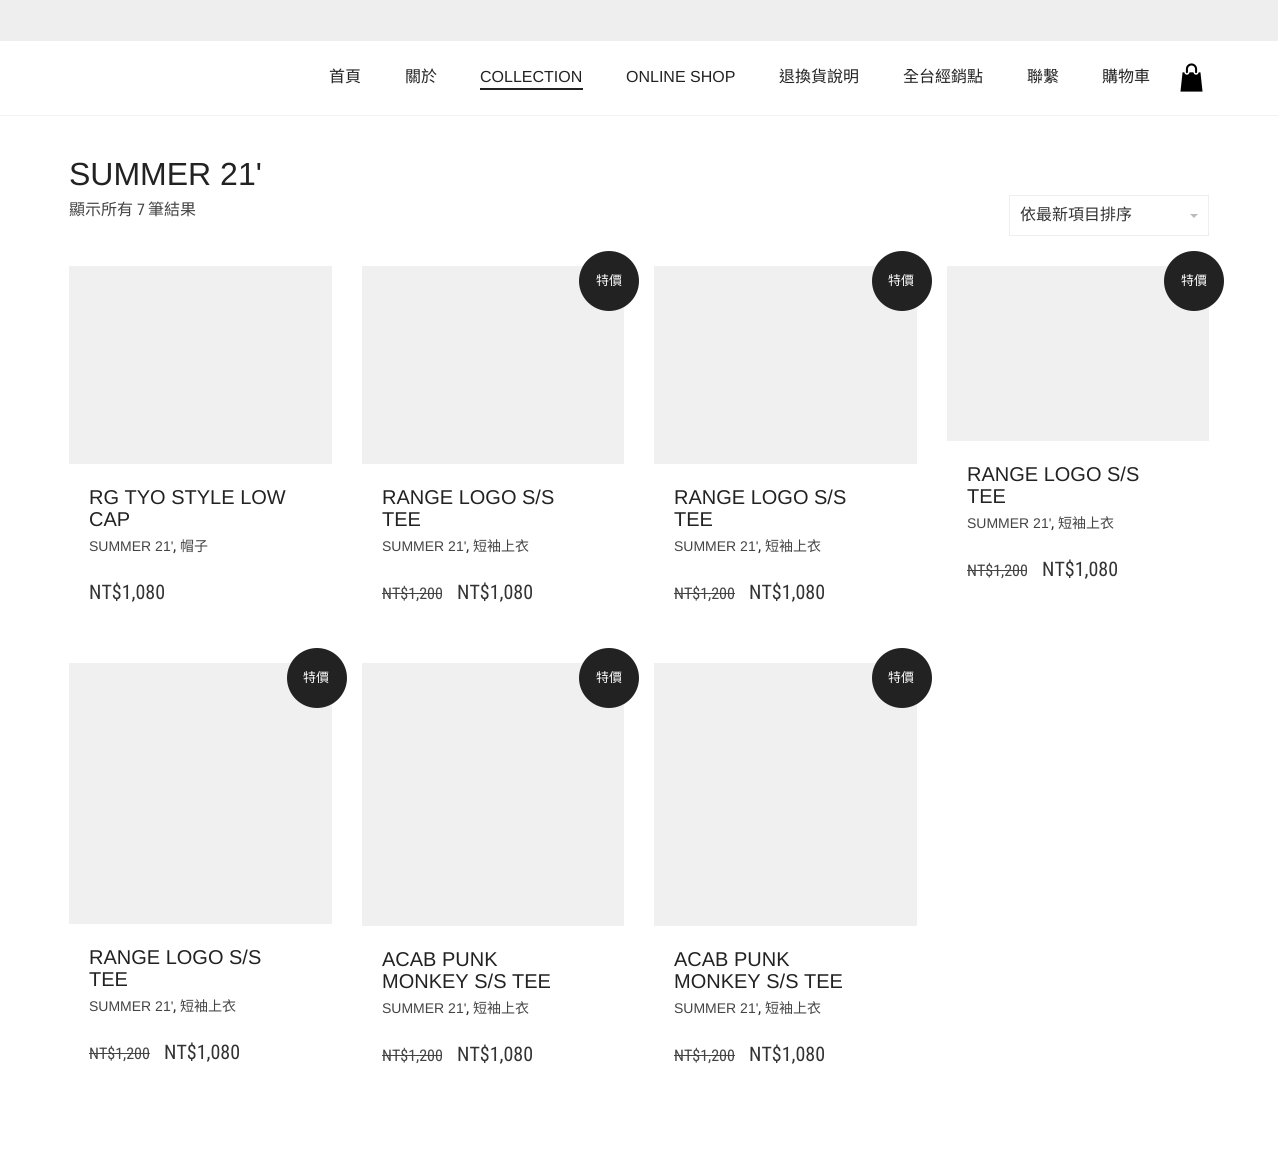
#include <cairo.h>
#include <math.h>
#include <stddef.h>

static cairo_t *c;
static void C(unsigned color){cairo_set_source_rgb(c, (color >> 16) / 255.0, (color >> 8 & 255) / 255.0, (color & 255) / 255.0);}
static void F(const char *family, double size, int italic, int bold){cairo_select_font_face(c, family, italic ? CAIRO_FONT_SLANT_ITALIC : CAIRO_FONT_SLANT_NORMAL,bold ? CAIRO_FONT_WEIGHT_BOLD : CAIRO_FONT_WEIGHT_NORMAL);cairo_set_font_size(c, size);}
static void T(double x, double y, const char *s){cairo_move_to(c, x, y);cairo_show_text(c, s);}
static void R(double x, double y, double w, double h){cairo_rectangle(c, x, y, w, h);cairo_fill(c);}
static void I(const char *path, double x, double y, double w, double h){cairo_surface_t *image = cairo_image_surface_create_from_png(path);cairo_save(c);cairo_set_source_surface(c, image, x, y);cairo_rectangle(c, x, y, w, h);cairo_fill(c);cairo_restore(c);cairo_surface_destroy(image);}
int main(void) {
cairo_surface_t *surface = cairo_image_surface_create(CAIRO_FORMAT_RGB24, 1278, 1170);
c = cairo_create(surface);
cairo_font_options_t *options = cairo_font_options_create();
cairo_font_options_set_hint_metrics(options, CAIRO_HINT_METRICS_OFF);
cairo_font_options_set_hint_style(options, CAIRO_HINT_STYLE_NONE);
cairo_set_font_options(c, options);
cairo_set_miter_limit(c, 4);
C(0xffffff);
cairo_paint(c);
C(0xf2f2f2);
R(0,115,1278,1);
C(0xeeeeee);
R(0,0,1278,41);
F("Noto Sans CJK TC",16,0,0);
C(0x222222);
T(329,82,"首頁");
T(405,82,"關於");
F("Liberation Sans",16,0,0);
T(480,82,"COLLECTION");
R(480,88,103,2);
T(626,82,"ONLINE SHOP");
F("Noto Sans CJK TC",16,0,0);
T(779,82,"退換貨說明");
T(903,82,"全台經銷點");
T(1027,82,"聯繫");
T(1102,82,"購物車");
I("1.png",1180,63,23,29);
F("Liberation Sans",32,0,0);
T(69,185,"SUMMER 21'");
F("Noto Sans CJK TC",16,0,0);
C(0x444444);
T(69,215,"顯示所有");
F("Roboto Condensed",16,0,0);
T(137,215,"7");
F("Noto Sans CJK TC",16,0,0);
T(148,215,"筆結果");
cairo_rectangle(c,1009.5,195.5,199,40);
C(0xeeeeee);
cairo_set_line_width(c,1);
cairo_stroke(c);
C(0x333333);
T(1020,220,"依最新項目排序");
C(0xbbbbbb);
cairo_new_path(c);
cairo_move_to(c,1190,214);
cairo_line_to(c,1198,214);
cairo_line_to(c,1194,218);
cairo_close_path(c);
cairo_fill(c);
C(0xf0f0f0);
R(69,266,263,198);
F("Liberation Sans",20,0,0);
C(0x222222);
T(89,504,"RG TYO STYLE LOW");
T(89,526,"CAP");
F("Liberation Sans",14,0,0);
C(0x444444);
T(89,551,"SUMMER 21'");
F("Roboto Condensed",16,0,0);
C(0x333333);
T(173,551,",");
F("Noto Sans CJK TC",14,0,0);
C(0x444444);
T(180,551,"帽子");
F("Roboto Condensed",20,0,0);
C(0x333333);
T(89,599,"NT$1,080");
C(0xf0f0f0);
R(362,266,262,198);
C(0x222222);
cairo_new_path(c);
cairo_arc(c,609,281,30,0,2 * M_PI);
cairo_fill(c);
F("Noto Sans CJK TC",13,0,0);
C(0xffffff);
T(596,285,"特價");
F("Liberation Sans",20,0,0);
C(0x222222);
T(382,504,"RANGE LOGO S/S");
T(382,526,"TEE");
F("Liberation Sans",14,0,0);
C(0x444444);
T(382,551,"SUMMER 21'");
F("Roboto Condensed",16,0,0);
C(0x333333);
T(466,551,",");
F("Noto Sans CJK TC",14,0,0);
C(0x444444);
T(473,551,"短袖上衣");
F("Roboto Condensed",16,0,0);
T(382,599,"NT$1,200");
R(382,593,60,1);
F("Roboto Condensed",20,0,0);
C(0x333333);
T(457,599,"NT$1,080");
C(0xf0f0f0);
R(654,266,263,198);
C(0x222222);
cairo_new_path(c);
cairo_arc(c,902,281,30,0,2 * M_PI);
cairo_fill(c);
F("Noto Sans CJK TC",13,0,0);
C(0xffffff);
T(888,285,"特價");
F("Liberation Sans",20,0,0);
C(0x222222);
T(674,504,"RANGE LOGO S/S");
T(674,526,"TEE");
F("Liberation Sans",14,0,0);
C(0x444444);
T(674,551,"SUMMER 21'");
F("Roboto Condensed",16,0,0);
C(0x333333);
T(758,551,",");
F("Noto Sans CJK TC",14,0,0);
C(0x444444);
T(765,551,"短袖上衣");
F("Roboto Condensed",16,0,0);
T(674,599,"NT$1,200");
R(674,593,61,1);
F("Roboto Condensed",20,0,0);
C(0x333333);
T(749,599,"NT$1,080");
C(0xf0f0f0);
R(947,266,262,175);
C(0x222222);
cairo_new_path(c);
cairo_arc(c,1194,281,30,0,2 * M_PI);
cairo_fill(c);
F("Noto Sans CJK TC",13,0,0);
C(0xffffff);
T(1181,285,"特價");
F("Liberation Sans",20,0,0);
C(0x222222);
T(967,481,"RANGE LOGO S/S");
T(967,503,"TEE");
F("Liberation Sans",14,0,0);
C(0x444444);
T(967,528,"SUMMER 21'");
F("Roboto Condensed",16,0,0);
C(0x333333);
T(1051,528,",");
F("Noto Sans CJK TC",14,0,0);
C(0x444444);
T(1058,528,"短袖上衣");
F("Roboto Condensed",16,0,0);
T(967,576,"NT$1,200");
R(967,570,60,1);
F("Roboto Condensed",20,0,0);
C(0x333333);
T(1042,576,"NT$1,080");
C(0xf0f0f0);
R(69,663,263,261);
C(0x222222);
cairo_new_path(c);
cairo_arc(c,317,678,30,0,2 * M_PI);
cairo_fill(c);
F("Noto Sans CJK TC",13,0,0);
C(0xffffff);
T(303,682,"特價");
F("Liberation Sans",20,0,0);
C(0x222222);
T(89,964,"RANGE LOGO S/S");
T(89,986,"TEE");
F("Liberation Sans",14,0,0);
C(0x444444);
T(89,1011,"SUMMER 21'");
F("Roboto Condensed",16,0,0);
C(0x333333);
T(173,1011,",");
F("Noto Sans CJK TC",14,0,0);
C(0x444444);
T(180,1011,"短袖上衣");
F("Roboto Condensed",16,0,0);
T(89,1059,"NT$1,200");
R(89,1053,61,1);
F("Roboto Condensed",20,0,0);
C(0x333333);
T(164,1059,"NT$1,080");
C(0xf0f0f0);
R(362,663,262,263);
C(0x222222);
cairo_new_path(c);
cairo_arc(c,609,678,30,0,2 * M_PI);
cairo_fill(c);
F("Noto Sans CJK TC",13,0,0);
C(0xffffff);
T(596,682,"特價");
F("Liberation Sans",20,0,0);
C(0x222222);
T(382,966,"ACAB PUNK");
T(382,988,"MONKEY S/S TEE");
F("Liberation Sans",14,0,0);
C(0x444444);
T(382,1013,"SUMMER 21'");
F("Roboto Condensed",16,0,0);
C(0x333333);
T(466,1013,",");
F("Noto Sans CJK TC",14,0,0);
C(0x444444);
T(473,1013,"短袖上衣");
F("Roboto Condensed",16,0,0);
T(382,1061,"NT$1,200");
R(382,1055,60,1);
F("Roboto Condensed",20,0,0);
C(0x333333);
T(457,1061,"NT$1,080");
C(0xf0f0f0);
R(654,663,263,263);
C(0x222222);
cairo_new_path(c);
cairo_arc(c,902,678,30,0,2 * M_PI);
cairo_fill(c);
F("Noto Sans CJK TC",13,0,0);
C(0xffffff);
T(888,682,"特價");
F("Liberation Sans",20,0,0);
C(0x222222);
T(674,966,"ACAB PUNK");
T(674,988,"MONKEY S/S TEE");
F("Liberation Sans",14,0,0);
C(0x444444);
T(674,1013,"SUMMER 21'");
F("Roboto Condensed",16,0,0);
C(0x333333);
T(758,1013,",");
F("Noto Sans CJK TC",14,0,0);
C(0x444444);
T(765,1013,"短袖上衣");
F("Roboto Condensed",16,0,0);
T(674,1061,"NT$1,200");
R(674,1055,61,1);
F("Roboto Condensed",20,0,0);
C(0x333333);
T(749,1061,"NT$1,080");
cairo_surface_write_to_png(surface, "o.png");
cairo_font_options_destroy(options);
cairo_destroy(c);
cairo_surface_destroy(surface);
return 0;
}
